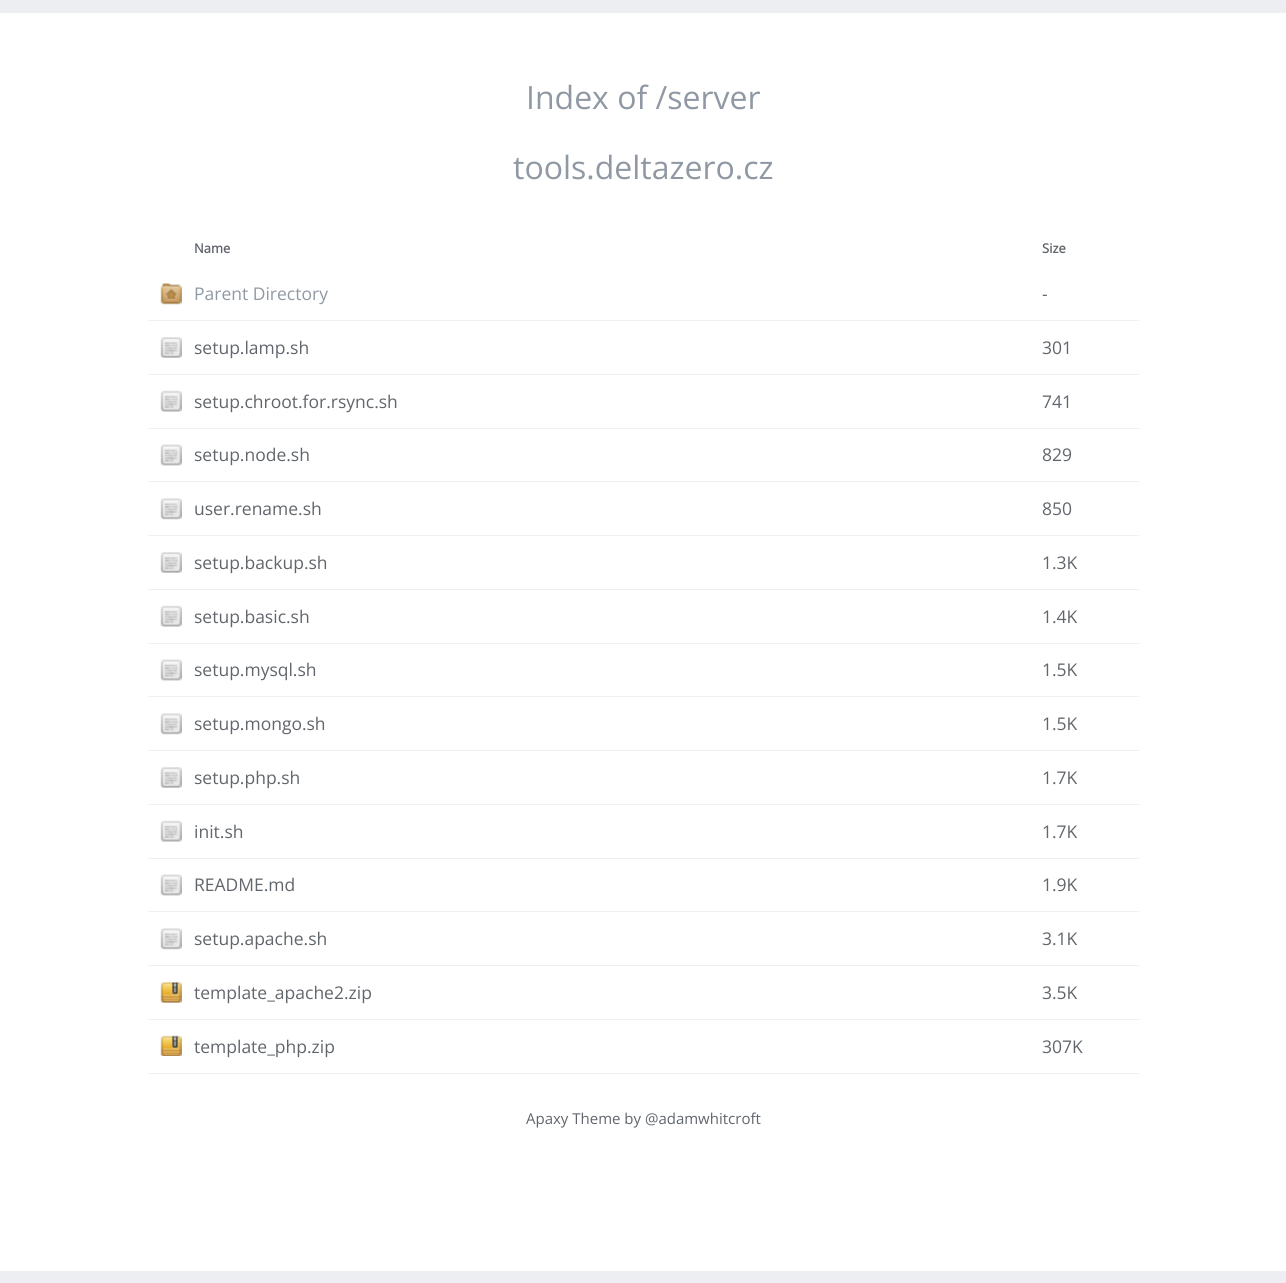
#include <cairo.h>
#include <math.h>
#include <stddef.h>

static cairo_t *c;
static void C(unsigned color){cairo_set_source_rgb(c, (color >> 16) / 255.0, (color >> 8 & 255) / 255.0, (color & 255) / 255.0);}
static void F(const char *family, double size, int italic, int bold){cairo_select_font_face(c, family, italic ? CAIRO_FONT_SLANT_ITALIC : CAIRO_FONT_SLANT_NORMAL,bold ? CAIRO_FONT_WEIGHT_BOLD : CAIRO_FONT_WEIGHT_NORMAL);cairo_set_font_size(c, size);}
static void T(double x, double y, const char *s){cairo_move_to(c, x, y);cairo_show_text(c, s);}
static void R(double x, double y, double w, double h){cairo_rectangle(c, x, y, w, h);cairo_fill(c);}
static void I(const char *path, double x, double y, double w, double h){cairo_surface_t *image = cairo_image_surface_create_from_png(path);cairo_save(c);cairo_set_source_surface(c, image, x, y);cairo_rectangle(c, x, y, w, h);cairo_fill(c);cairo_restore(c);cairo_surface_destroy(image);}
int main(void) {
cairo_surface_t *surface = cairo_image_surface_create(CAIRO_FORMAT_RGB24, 1286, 1283);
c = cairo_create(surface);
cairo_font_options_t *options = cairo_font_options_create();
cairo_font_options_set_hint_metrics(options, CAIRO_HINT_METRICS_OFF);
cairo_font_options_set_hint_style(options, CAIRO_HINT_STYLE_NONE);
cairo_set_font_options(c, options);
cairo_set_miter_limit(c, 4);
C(0xffffff);
cairo_paint(c);
C(0xeceef1);
R(0,0,1286,13);
R(0,1271,1286,12);
F("Open Sans",32,0,0);
C(0x9099a3);
T(526,109,"Index of /server");
T(513,179,"tools.deltazero.cz");
F("Open Sans",13,0,1);
C(0x61666c);
T(194,253,"Name");
T(1042,253,"Size");
I("1.png",160,283,22,22);
F("Open Sans",17.5,0,0);
C(0x9099a3);
T(194,300,"Parent Directory");
C(0xedf1f5);
R(148,320,991,1);
C(0x61666c);
T(1042,300,"-");
I("2.png",160,337,22,21);
T(194,354,"setup.lamp.sh");
C(0xedf1f5);
R(148,374,991,1);
C(0x61666c);
T(1042,354,"301");
I("3.png",160,390,22,22);
T(194,408,"setup.chroot.for.rsync.sh");
C(0xedf1f5);
R(148,428,991,1);
C(0x61666c);
T(1042,408,"741");
I("4.png",160,444,22,22);
T(194,461,"setup.node.sh");
C(0xedf1f5);
R(148,481,991,1);
C(0x61666c);
T(1042,461,"829");
I("5.png",160,498,22,22);
T(194,515,"user.rename.sh");
C(0xedf1f5);
R(148,535,991,1);
C(0x61666c);
T(1042,515,"850");
I("2.png",160,552,22,21);
T(194,569,"setup.backup.sh");
C(0xedf1f5);
R(148,589,991,1);
C(0x61666c);
T(1042,569,"1.3K");
I("3.png",160,605,22,22);
T(194,623,"setup.basic.sh");
C(0xedf1f5);
R(148,643,991,1);
C(0x61666c);
T(1042,623,"1.4K");
I("4.png",160,659,22,22);
T(194,676,"setup.mysql.sh");
C(0xedf1f5);
R(148,696,991,1);
C(0x61666c);
T(1042,676,"1.5K");
I("5.png",160,713,22,22);
T(194,730,"setup.mongo.sh");
C(0xedf1f5);
R(148,750,991,1);
C(0x61666c);
T(1042,730,"1.5K");
I("2.png",160,767,22,21);
T(194,784,"setup.php.sh");
C(0xedf1f5);
R(148,804,991,1);
C(0x61666c);
T(1042,784,"1.7K");
I("3.png",160,820,22,22);
T(194,838,"init.sh");
C(0xedf1f5);
R(148,858,991,1);
C(0x61666c);
T(1042,838,"1.7K");
I("4.png",160,874,22,22);
T(194,891,"README.md");
C(0xedf1f5);
R(148,911,991,1);
C(0x61666c);
T(1042,891,"1.9K");
I("5.png",160,928,22,22);
T(194,945,"setup.apache.sh");
C(0xedf1f5);
R(148,965,991,1);
C(0x61666c);
T(1042,945,"3.1K");
I("6.png",160,982,22,21);
T(194,999,"template_apache2.zip");
C(0xedf1f5);
R(148,1019,991,1);
C(0x61666c);
T(1042,999,"3.5K");
I("7.png",160,1035,22,21);
T(194,1053,"template_php.zip");
C(0xedf1f5);
R(148,1073,991,1);
C(0x61666c);
T(1042,1053,"307K");
F("Open Sans",15,0,0);
T(526,1124,"Apaxy Theme by @adamwhitcroft");
cairo_surface_write_to_png(surface, "o.png");
cairo_font_options_destroy(options);
cairo_destroy(c);
cairo_surface_destroy(surface);
return 0;
}
